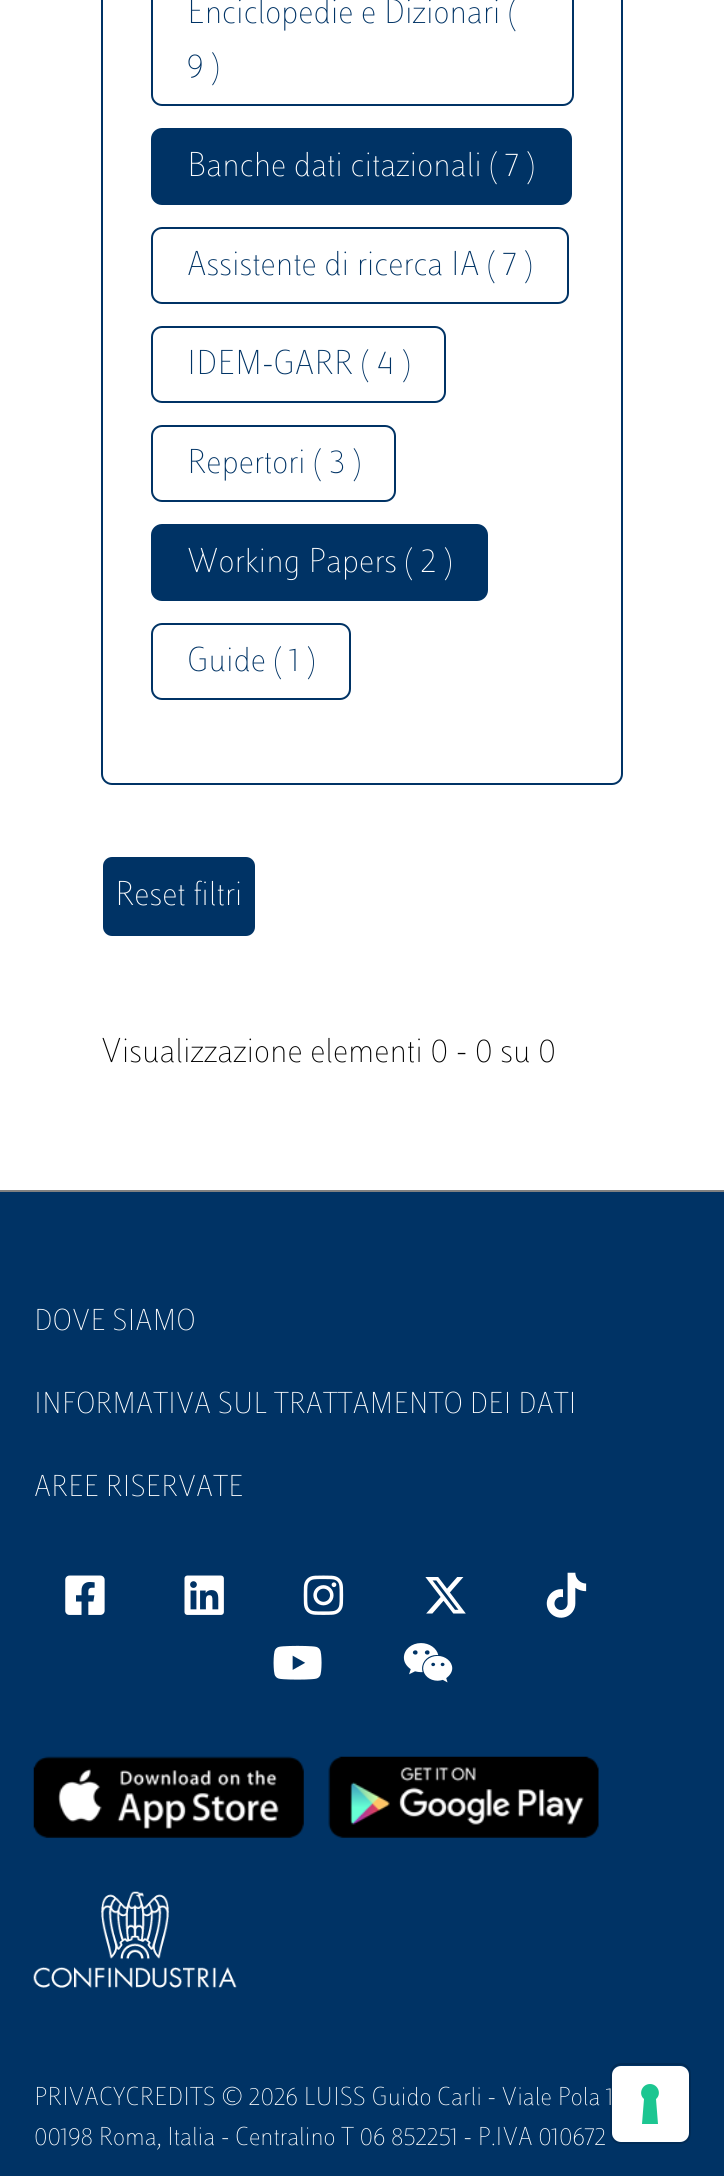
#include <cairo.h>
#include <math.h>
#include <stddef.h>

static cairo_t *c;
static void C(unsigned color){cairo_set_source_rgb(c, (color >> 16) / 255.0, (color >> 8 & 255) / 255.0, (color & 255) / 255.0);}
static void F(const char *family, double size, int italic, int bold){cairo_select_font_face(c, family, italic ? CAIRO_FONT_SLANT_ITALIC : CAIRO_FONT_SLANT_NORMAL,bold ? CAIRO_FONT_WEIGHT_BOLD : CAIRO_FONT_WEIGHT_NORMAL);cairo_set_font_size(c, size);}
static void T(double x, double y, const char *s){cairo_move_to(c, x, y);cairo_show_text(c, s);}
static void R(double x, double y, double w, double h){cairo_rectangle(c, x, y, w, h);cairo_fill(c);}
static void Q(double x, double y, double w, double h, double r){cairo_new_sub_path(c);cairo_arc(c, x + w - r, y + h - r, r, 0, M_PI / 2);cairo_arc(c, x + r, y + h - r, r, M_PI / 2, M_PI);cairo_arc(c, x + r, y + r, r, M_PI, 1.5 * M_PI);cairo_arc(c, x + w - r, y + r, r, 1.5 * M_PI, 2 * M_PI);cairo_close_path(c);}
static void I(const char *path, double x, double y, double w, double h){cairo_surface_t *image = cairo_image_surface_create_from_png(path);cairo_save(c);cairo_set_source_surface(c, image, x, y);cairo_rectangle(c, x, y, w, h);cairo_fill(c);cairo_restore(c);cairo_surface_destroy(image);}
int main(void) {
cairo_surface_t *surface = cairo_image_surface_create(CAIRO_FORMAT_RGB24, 724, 2176);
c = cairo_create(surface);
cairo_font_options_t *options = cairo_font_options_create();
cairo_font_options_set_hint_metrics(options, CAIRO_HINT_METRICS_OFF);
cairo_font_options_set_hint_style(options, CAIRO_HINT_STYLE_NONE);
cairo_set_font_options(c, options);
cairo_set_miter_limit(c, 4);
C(0xffffff);
cairo_paint(c);
Q(102,-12,520,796,10);
C(0x003365);
cairo_stroke(c);
Q(152,-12,421,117,10);
cairo_stroke(c);
F("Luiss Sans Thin",36,0,0);
T(187,23,"Enciclopedie e Dizionari (");
T(187,77,"9 )");
Q(152,129,419,75,10);
cairo_fill_preserve(c);
cairo_stroke(c);
C(0xffffff);
T(187,176,"Banche dati citazionali ( 7 )");
Q(152,228,416,75,10);
C(0x003365);
cairo_stroke(c);
T(187,275,"Assistente di ricerca IA ( 7 )");
Q(152,327,293,75,10);
cairo_stroke(c);
T(187,374,"IDEM-GARR ( 4 )");
Q(152,426,243,75,10);
cairo_stroke(c);
T(187,473,"Repertori ( 3 )");
Q(152,525,335,75,10);
cairo_fill_preserve(c);
cairo_stroke(c);
C(0xffffff);
T(187,572,"Working Papers ( 2 )");
Q(152,624,198,75,10);
C(0x003365);
cairo_stroke(c);
T(187,671,"Guide ( 1 )");
Q(102,856,154,81,10);
cairo_fill_preserve(c);
C(0xffffff);
cairo_stroke(c);
T(115,905,"Reset filtri");
C(0x010101);
T(101,1062,"Visualizzazione elementi 0 - 0 su 0");
C(0x003365);
R(0,1192,724,984);
C(0x808080);
R(0,1190,724,2);
F("Luiss Sans Thin",31.5,0,0);
C(0xffffff);
T(34,1330,"DOVE SIAMO");
T(34,1413,"INFORMATIVA SUL TRATTAMENTO DEI DATI");
T(34,1496,"AREE RISERVATE");
I("1.png",65,1575,40,40);
I("2.png",184,1575,40,40);
I("3.png",303,1575,41,40);
I("4.png",425,1577,41,37);
I("5.png",546,1572,41,46);
I("6.png",273,1645,49,35);
I("7.png",403,1643,50,40);
I("8.png",33,1756,271,82);
I("9.png",328,1756,271,82);
I("10.png",33,1891,204,97);
F("Luiss Sans Thin",27,0,0);
T(34,2105,"PRIVACYCREDITS © 2026 LUISS Guido Carli - Viale Pola 1");
T(34,2145,"00198 Roma, Italia - Centralino T 06 852251 - P.IVA 010672");
Q(611,2064,79,79,10);
cairo_set_source_rgba(c,0,0,0,0.15);
cairo_stroke(c);
C(0xffffff);
Q(612,2066,77,76,9);
cairo_fill(c);
C(0x1cc691);
cairo_set_fill_rule(c,CAIRO_FILL_RULE_EVEN_ODD);
cairo_new_path(c);
cairo_move_to(c,650,2084);
cairo_curve_to(c,658,2084,662,2094,656,2099);
cairo_line_to(c,658,2124);
cairo_line_to(c,642,2124);
cairo_line_to(c,644,2099);
cairo_curve_to(c,638,2094,642,2084,650,2084);
cairo_close_path(c);
cairo_fill(c);
cairo_surface_write_to_png(surface, "o.png");
cairo_font_options_destroy(options);
cairo_destroy(c);
cairo_surface_destroy(surface);
return 0;
}
